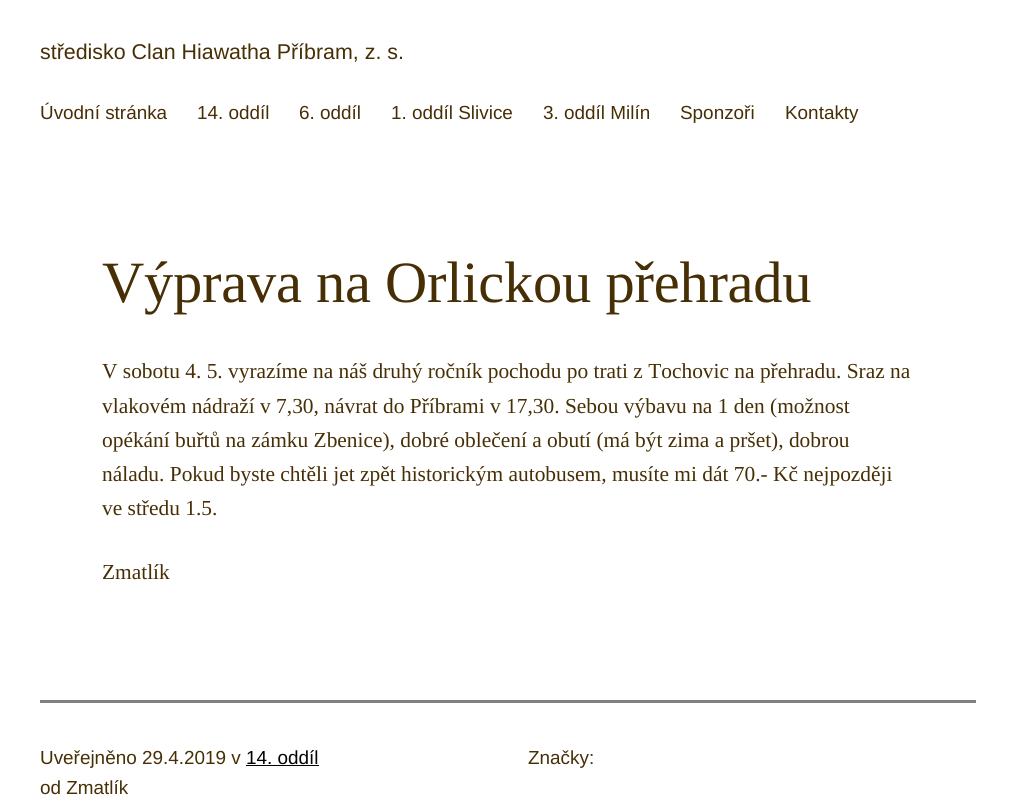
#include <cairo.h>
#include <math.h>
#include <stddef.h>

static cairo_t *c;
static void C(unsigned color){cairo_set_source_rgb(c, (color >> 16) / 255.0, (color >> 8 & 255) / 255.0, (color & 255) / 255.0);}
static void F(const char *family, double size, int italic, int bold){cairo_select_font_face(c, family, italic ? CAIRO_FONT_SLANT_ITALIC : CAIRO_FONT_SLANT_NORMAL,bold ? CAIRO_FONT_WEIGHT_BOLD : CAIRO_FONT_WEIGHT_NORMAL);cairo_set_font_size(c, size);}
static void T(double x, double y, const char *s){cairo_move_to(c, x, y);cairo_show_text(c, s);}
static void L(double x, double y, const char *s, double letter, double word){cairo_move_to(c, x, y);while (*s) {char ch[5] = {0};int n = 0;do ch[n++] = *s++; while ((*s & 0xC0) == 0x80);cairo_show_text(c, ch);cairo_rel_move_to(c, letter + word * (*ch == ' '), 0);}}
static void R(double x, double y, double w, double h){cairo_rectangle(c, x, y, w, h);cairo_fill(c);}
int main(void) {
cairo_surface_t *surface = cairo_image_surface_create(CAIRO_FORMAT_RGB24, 1016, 810);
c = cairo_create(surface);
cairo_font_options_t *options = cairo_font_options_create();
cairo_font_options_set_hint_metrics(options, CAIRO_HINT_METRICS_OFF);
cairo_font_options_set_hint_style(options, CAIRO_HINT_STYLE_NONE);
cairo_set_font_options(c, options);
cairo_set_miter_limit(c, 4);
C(0xffffff);
cairo_paint(c);
F("Liberation Sans",21.4,0,0);
C(0x472f05);
T(40,59,"středisko Clan Hiawatha Příbram, z. s.");
F("Liberation Sans",18.9,0,0);
T(40,119,"Úvodní stránka");
T(197,119,"14. oddíl");
T(299,119,"6. oddíl");
T(391,119,"1. oddíl Slivice");
T(543,119,"3. oddíl Milín");
T(680,119,"Sponzoři");
T(785,119,"Kontakty");
F("Liberation Serif",58.5,0,0);
L(102,302,"Výprava na Orlickou přehradu",-.25,0);
F("Liberation Serif",21.4,0,0);
T(102,378,"V sobotu 4. 5. vyrazíme na náš druhý ročník pochodu po trati z Tochovic na přehradu. Sraz na");
T(102,413,"vlakovém nádraží v 7,30, návrat do Příbrami v 17,30. Sebou výbavu na 1 den (možnost");
T(102,447,"opékání buřtů na zámku Zbenice), dobré oblečení a obutí (má být zima a pršet), dobrou");
T(102,481,"náladu. Pokud byste chtěli jet zpět historickým autobusem, musíte mi dát 70.- Kč nejpozději");
T(102,515,"ve středu 1.5.");
T(102,579,"Zmatlík");
C(0x808080);
R(40,700,936,3);
F("Liberation Sans",18.9,0,0);
C(0x472f05);
T(40,764,"Uveřejněno 29.4.2019 v");
C(0x000000);
T(246,764,"14. oddíl");
R(246,765,73,1);
C(0x472f05);
T(40,794,"od Zmatlík");
T(528,764,"Značky:");
cairo_surface_write_to_png(surface, "o.png");
cairo_font_options_destroy(options);
cairo_destroy(c);
cairo_surface_destroy(surface);
return 0;
}
